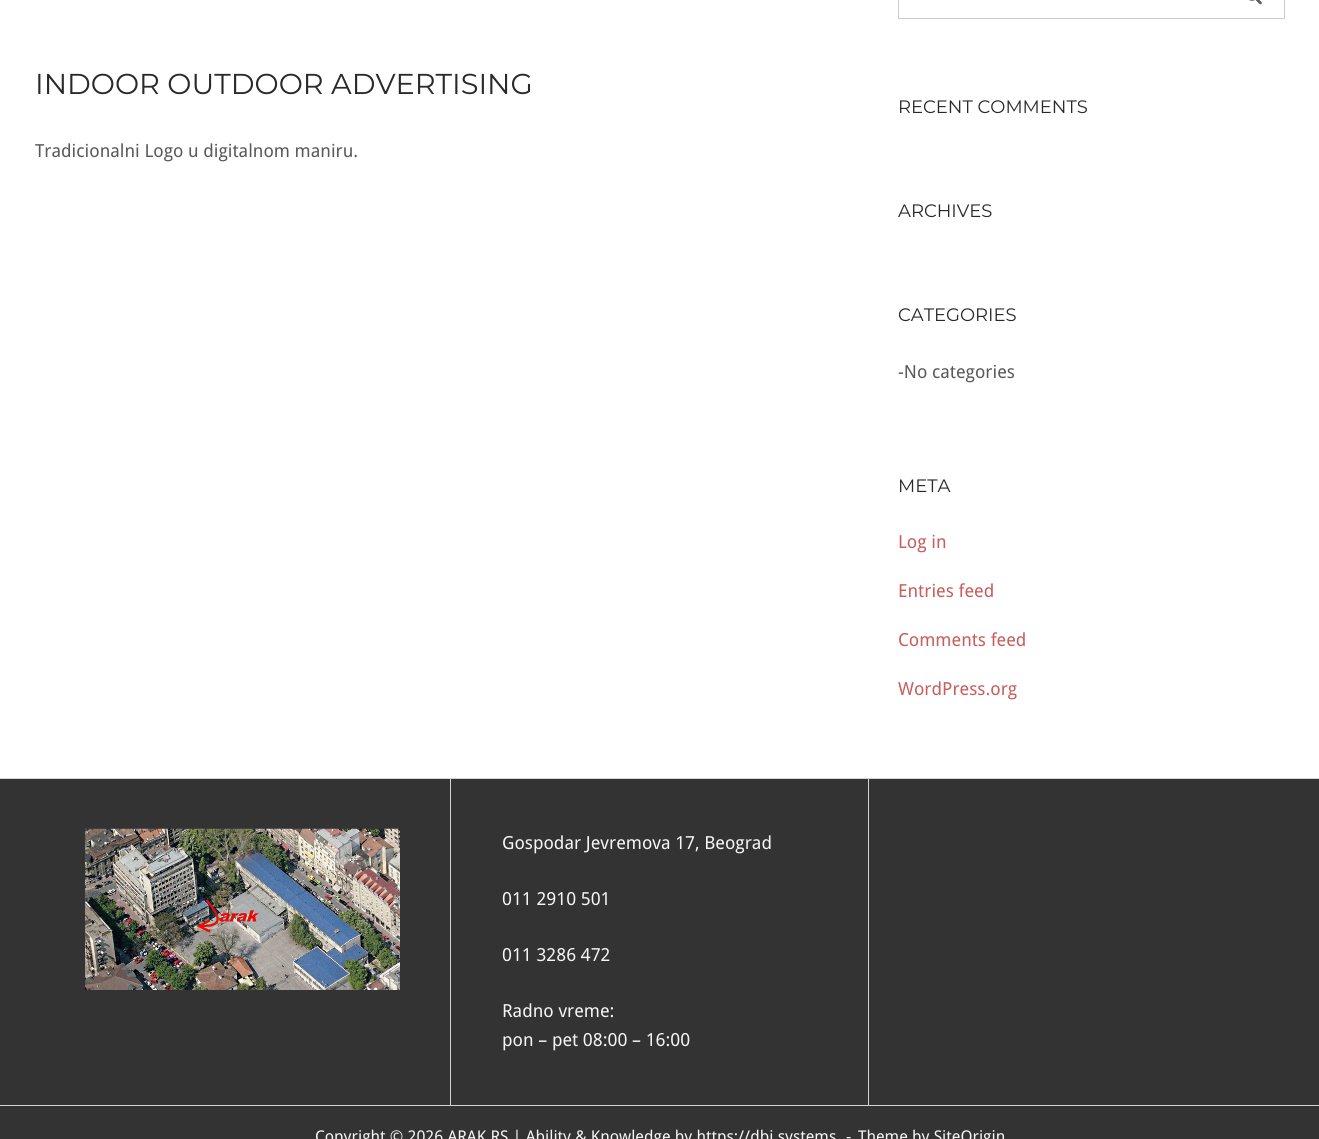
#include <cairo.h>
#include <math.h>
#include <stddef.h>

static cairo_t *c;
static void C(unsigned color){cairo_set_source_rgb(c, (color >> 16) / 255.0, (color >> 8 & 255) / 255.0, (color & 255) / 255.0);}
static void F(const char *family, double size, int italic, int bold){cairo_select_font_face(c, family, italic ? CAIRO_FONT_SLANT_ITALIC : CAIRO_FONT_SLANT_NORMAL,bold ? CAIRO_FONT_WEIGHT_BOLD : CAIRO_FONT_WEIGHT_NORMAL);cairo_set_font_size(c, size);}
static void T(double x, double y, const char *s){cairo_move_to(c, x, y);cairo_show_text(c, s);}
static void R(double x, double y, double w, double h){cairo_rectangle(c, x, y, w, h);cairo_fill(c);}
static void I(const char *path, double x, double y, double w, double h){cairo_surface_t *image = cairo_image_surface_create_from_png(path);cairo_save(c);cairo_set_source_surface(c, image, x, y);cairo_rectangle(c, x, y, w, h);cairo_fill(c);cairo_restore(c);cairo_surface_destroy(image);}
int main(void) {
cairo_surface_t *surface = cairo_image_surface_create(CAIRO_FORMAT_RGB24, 1319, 1139);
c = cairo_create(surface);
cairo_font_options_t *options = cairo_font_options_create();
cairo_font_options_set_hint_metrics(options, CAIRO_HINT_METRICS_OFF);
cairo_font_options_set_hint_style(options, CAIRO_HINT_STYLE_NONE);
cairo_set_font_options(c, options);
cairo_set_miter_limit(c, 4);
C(0xffffff);
cairo_paint(c);
F("Montserrat Thin",28.75,0,0);
C(0x292929);
T(35,94,"INDOOR OUTDOOR ADVERTISING");
F("Droid Sans",18,0,0);
C(0x595959);
T(35,157,"Tradicionalni Logo u digitalnom maniru.");
cairo_rectangle(c,898.5,-.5,386,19);
C(0xcccccc);
cairo_set_line_width(c,1);
cairo_stroke(c);
I("1.png",1249,0,13,5);
F("Montserrat Thin",18,0,0);
C(0x292929);
T(898,113,"RECENT COMMENTS");
T(898,217,"ARCHIVES");
T(898,321,"CATEGORIES");
F("Droid Sans",18,0,0);
C(0x595959);
T(898,378,"-No categories");
F("Montserrat Thin",18,0,0);
C(0x292929);
T(898,492,"META");
F("Droid Sans",18,0,0);
C(0xc75d5d);
T(898,548,"Log in");
T(898,597,"Entries feed");
T(898,646,"Comments feed");
T(898,695,"WordPress.org");
C(0x333333);
R(0,779,1319,360);
C(0xd4d4d4);
R(0,778,1319,1);
R(450,779,1,326);
I("2.png",85,828,315,162);
R(868,779,1,326);
C(0xf5f5f5);
T(502,849,"Gospodar Jevremova 17, Beograd");
T(502,905,"011 2910 501");
T(502,961,"011 3286 472");
T(502,1017,"Radno vreme:");
T(502,1046,"pon – pet 08:00 – 16:00");
C(0xd4d4d4);
R(0,1105,1319,1);
F("Droid Sans",16.2,0,0);
C(0xf5f5f5);
T(315,1142,"Copyright © 2026 ARAK.RS | Ability & Knowledge by https://dbj.systems");
T(846,1142,"-");
T(858,1142,"Theme by SiteOrigin");
cairo_surface_write_to_png(surface, "o.png");
cairo_font_options_destroy(options);
cairo_destroy(c);
cairo_surface_destroy(surface);
return 0;
}
